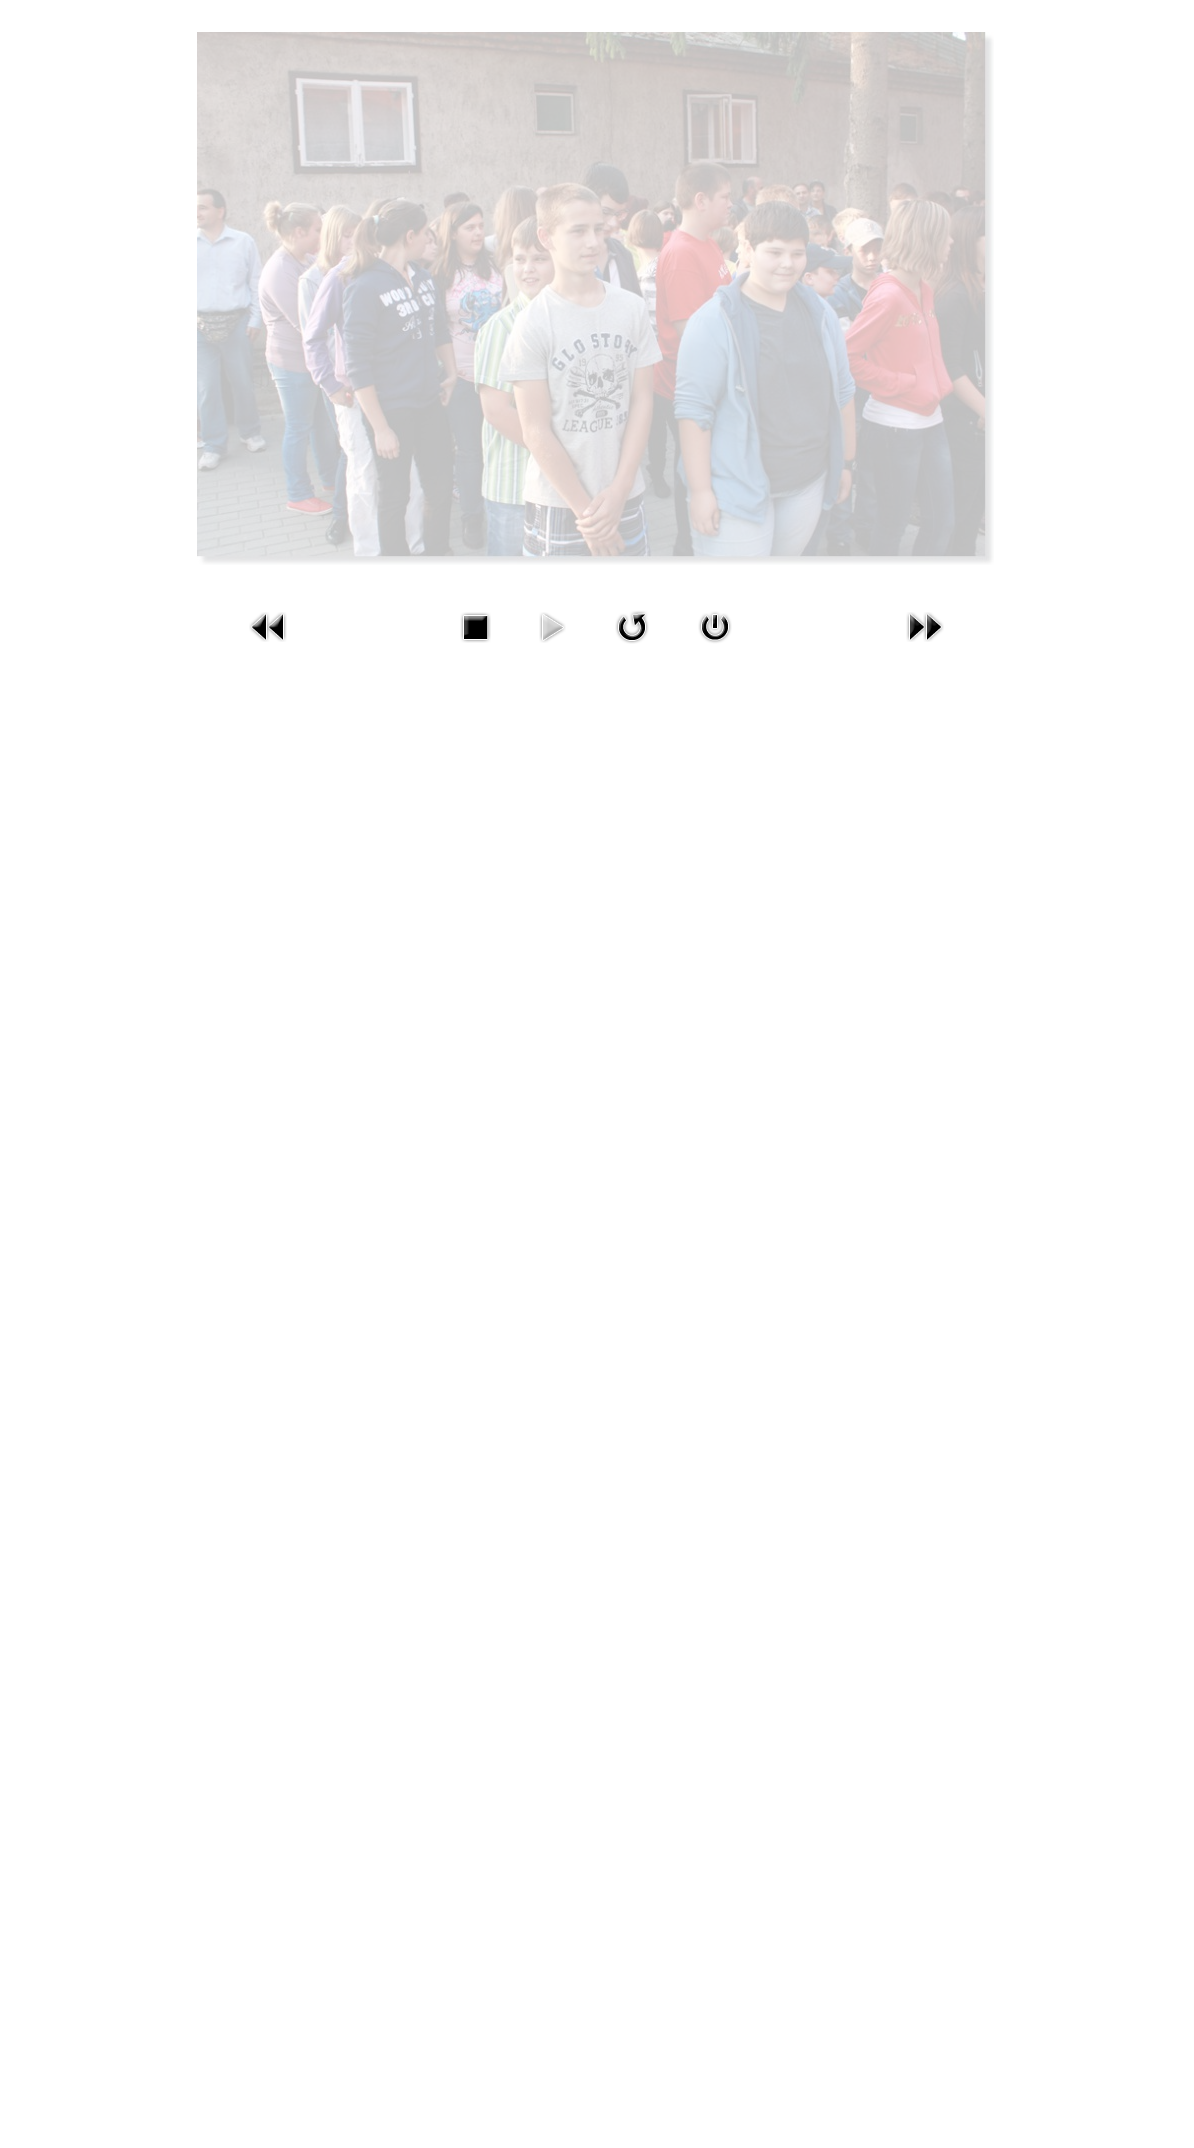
#include <cairo.h>
#include <math.h>
#include <stddef.h>

static cairo_t *c;
static void C(unsigned color){cairo_set_source_rgb(c, (color >> 16) / 255.0, (color >> 8 & 255) / 255.0, (color & 255) / 255.0);}
static void I(const char *path, double x, double y, double w, double h){cairo_surface_t *image = cairo_image_surface_create_from_png(path);cairo_save(c);cairo_set_source_surface(c, image, x, y);cairo_rectangle(c, x, y, w, h);cairo_fill(c);cairo_restore(c);cairo_surface_destroy(image);}
int main(void) {
cairo_surface_t *surface = cairo_image_surface_create(CAIRO_FORMAT_RGB24, 1194, 2148);
c = cairo_create(surface);
cairo_font_options_t *options = cairo_font_options_create();
cairo_font_options_set_hint_metrics(options, CAIRO_HINT_METRICS_OFF);
cairo_font_options_set_hint_style(options, CAIRO_HINT_STYLE_NONE);
cairo_set_font_options(c, options);
cairo_set_miter_limit(c, 4);
C(0xffffff);
cairo_paint(c);
I("1.png",197,32,797,533);
I("2.png",249,612,38,30);
I("3.png",460,612,31,31);
I("4.png",539,612,27,31);
I("5.png",615,610,34,34);
I("6.png",698,611,34,33);
I("7.png",906,612,38,30);
cairo_surface_write_to_png(surface, "o.png");
cairo_font_options_destroy(options);
cairo_destroy(c);
cairo_surface_destroy(surface);
return 0;
}
